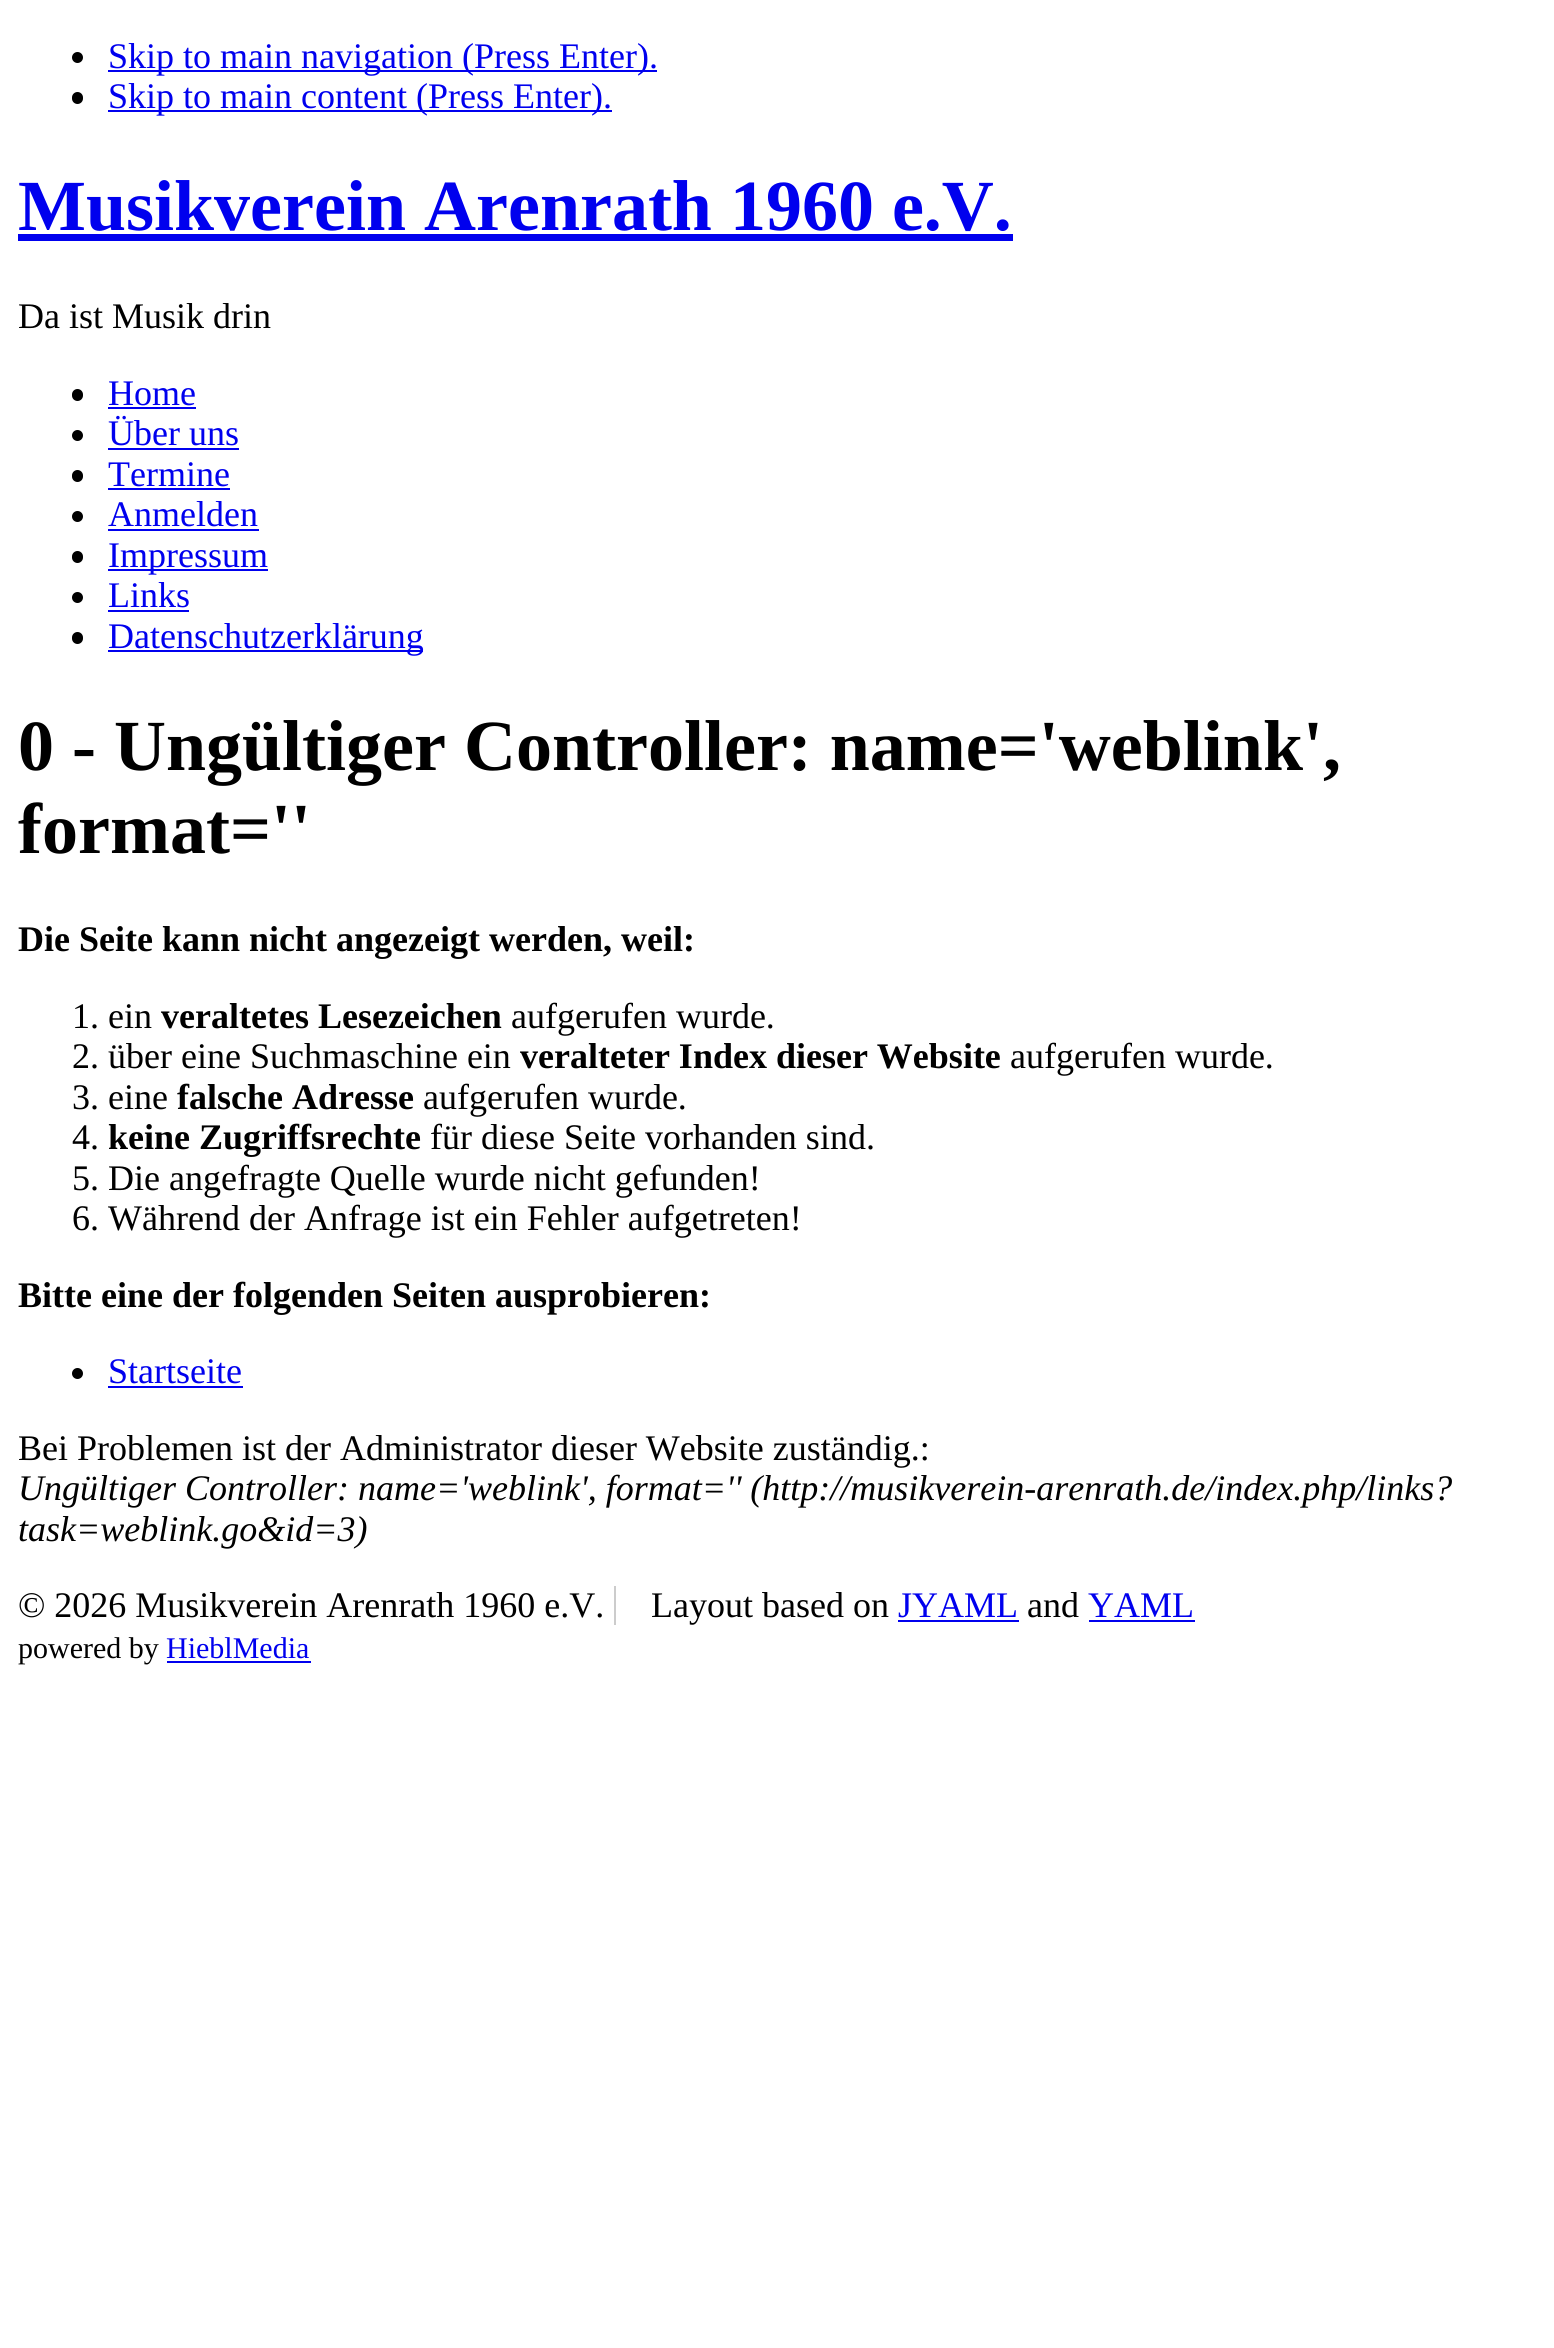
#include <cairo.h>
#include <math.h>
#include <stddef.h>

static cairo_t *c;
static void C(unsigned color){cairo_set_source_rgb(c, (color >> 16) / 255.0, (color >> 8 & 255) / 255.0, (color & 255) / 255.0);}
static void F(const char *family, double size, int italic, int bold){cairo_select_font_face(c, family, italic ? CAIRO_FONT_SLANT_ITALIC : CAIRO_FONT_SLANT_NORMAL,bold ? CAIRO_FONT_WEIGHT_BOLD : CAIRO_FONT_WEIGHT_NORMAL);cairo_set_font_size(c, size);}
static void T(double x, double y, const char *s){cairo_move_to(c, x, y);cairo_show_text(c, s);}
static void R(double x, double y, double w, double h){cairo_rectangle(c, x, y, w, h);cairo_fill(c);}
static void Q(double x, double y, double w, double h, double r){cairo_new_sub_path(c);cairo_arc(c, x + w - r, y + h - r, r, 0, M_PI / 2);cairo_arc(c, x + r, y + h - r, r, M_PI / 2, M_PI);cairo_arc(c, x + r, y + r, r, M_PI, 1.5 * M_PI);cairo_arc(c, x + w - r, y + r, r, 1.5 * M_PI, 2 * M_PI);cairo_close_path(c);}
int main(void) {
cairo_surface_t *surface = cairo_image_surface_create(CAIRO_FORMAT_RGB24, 1554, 2348);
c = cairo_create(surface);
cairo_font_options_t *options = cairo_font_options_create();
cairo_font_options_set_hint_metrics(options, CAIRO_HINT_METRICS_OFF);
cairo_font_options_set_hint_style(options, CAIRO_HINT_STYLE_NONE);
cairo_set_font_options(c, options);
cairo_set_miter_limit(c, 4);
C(0xffffff);
cairo_paint(c);
C(0x000000);
cairo_arc(c,77.5,57.5,5.5,0,2 * M_PI);
cairo_fill(c);
C(0x0000ee);
R(108,70,549,2);
F("Liberation Serif",36,0,0);
T(108,68,"Skip to main navigation (Press Enter).");
C(0x000000);
Q(72,92,11,12,5.5);
cairo_fill(c);
C(0x0000ee);
R(108,110,504,2);
T(108,108,"Skip to main content (Press Enter).");
F("Liberation Serif",72,0,1);
T(18,230,"Musikverein Arenrath 1960 e.V.");
R(18,234,995,7);
F("Liberation Serif",36,0,0);
C(0x000000);
T(18,328,"Da ist Musik drin");
Q(72,389,11,12,5.5);
cairo_fill(c);
C(0x0000ee);
T(108,405,"Home");
R(108,407,88,2);
C(0x000000);
cairo_new_path(c);
cairo_arc(c,77.5,435.5,5.5,0,2 * M_PI);
cairo_fill(c);
C(0x0000ee);
T(108,445,"Über uns");
R(108,448,131,2);
C(0x000000);
Q(72,470,11,12,5.5);
cairo_fill(c);
C(0x0000ee);
T(108,486,"Termine");
R(108,488,122,2);
C(0x000000);
cairo_new_path(c);
cairo_arc(c,77.5,516.5,5.5,0,2 * M_PI);
cairo_fill(c);
C(0x0000ee);
T(108,526,"Anmelden");
R(108,529,151,2);
C(0x000000);
Q(72,551,11,12,5.5);
cairo_fill(c);
C(0x0000ee);
R(108,569,160,2);
T(108,567,"Impressum");
C(0x000000);
cairo_new_path(c);
cairo_arc(c,77.5,597.5,5.5,0,2 * M_PI);
cairo_fill(c);
C(0x0000ee);
T(108,607,"Links");
R(108,610,81,2);
C(0x000000);
Q(72,632,11,12,5.5);
cairo_fill(c);
C(0x0000ee);
R(108,650,315,2);
T(108,648,"Datenschutzerklärung");
F("Liberation Serif",72,0,1);
C(0x000000);
T(18,770,"0 - Ungültiger Controller: name='weblink',");
T(18,853,"format=''");
F("Liberation Serif",36,0,1);
T(18,951,"Die Seite kann nicht angezeigt werden, weil:");
F("Liberation Serif",36,0,0);
T(72,1028,"1. ein");
F("Liberation Serif",36,0,1);
T(161,1028,"veraltetes Lesezeichen");
F("Liberation Serif",36,0,0);
T(511,1028,"aufgerufen wurde.");
T(72,1068,"2. über eine Suchmaschine ein");
F("Liberation Serif",36,0,1);
T(520,1068,"veralteter Index dieser Website");
F("Liberation Serif",36,0,0);
T(1010,1068,"aufgerufen wurde.");
T(72,1109,"3. eine");
F("Liberation Serif",36,0,1);
T(177,1109,"falsche Adresse");
F("Liberation Serif",36,0,0);
T(423,1109,"aufgerufen wurde.");
T(72,1149,"4.");
F("Liberation Serif",36,0,1);
T(108,1149,"keine Zugriffsrechte");
F("Liberation Serif",36,0,0);
T(430,1149,"für diese Seite vorhanden sind.");
T(72,1190,"5. Die angefragte Quelle wurde nicht gefunden!");
T(72,1230,"6. Während der Anfrage ist ein Fehler aufgetreten!");
F("Liberation Serif",36,0,1);
T(18,1307,"Bitte eine der folgenden Seiten ausprobieren:");
cairo_new_path(c);
cairo_arc(c,77.5,1373.5,5.5,0,2 * M_PI);
cairo_fill(c);
F("Liberation Serif",36,0,0);
C(0x0000ee);
T(108,1383,"Startseite");
R(108,1386,135,2);
C(0x000000);
T(18,1460,"Bei Problemen ist der Administrator dieser Website zuständig.:");
F("Liberation Serif",36,1,0);
T(18,1500,"Ungültiger Controller: name='weblink', format='' (http://musikverein-arenrath.de/index.php/links?");
T(18,1541,"task=weblink.go&id=3)");
F("Liberation Serif",36,0,0);
T(18,1617,"© 2026 Musikverein Arenrath 1960 e.V.");
T(651,1617,"Layout based on");
C(0xcccccc);
R(614,1586,2,39);
C(0x0000ee);
T(898,1617,"JYAML");
R(898,1620,121,2);
C(0x000000);
T(1027,1617,"and");
C(0x0000ee);
T(1088,1617,"YAML");
R(1089,1620,106,2);
F("Liberation Serif",30,0,0);
C(0x000000);
T(18,1658,"powered by");
C(0x0000ee);
T(166,1658,"HieblMedia");
R(167,1661,144,2);
cairo_surface_write_to_png(surface, "o.png");
cairo_font_options_destroy(options);
cairo_destroy(c);
cairo_surface_destroy(surface);
return 0;
}
